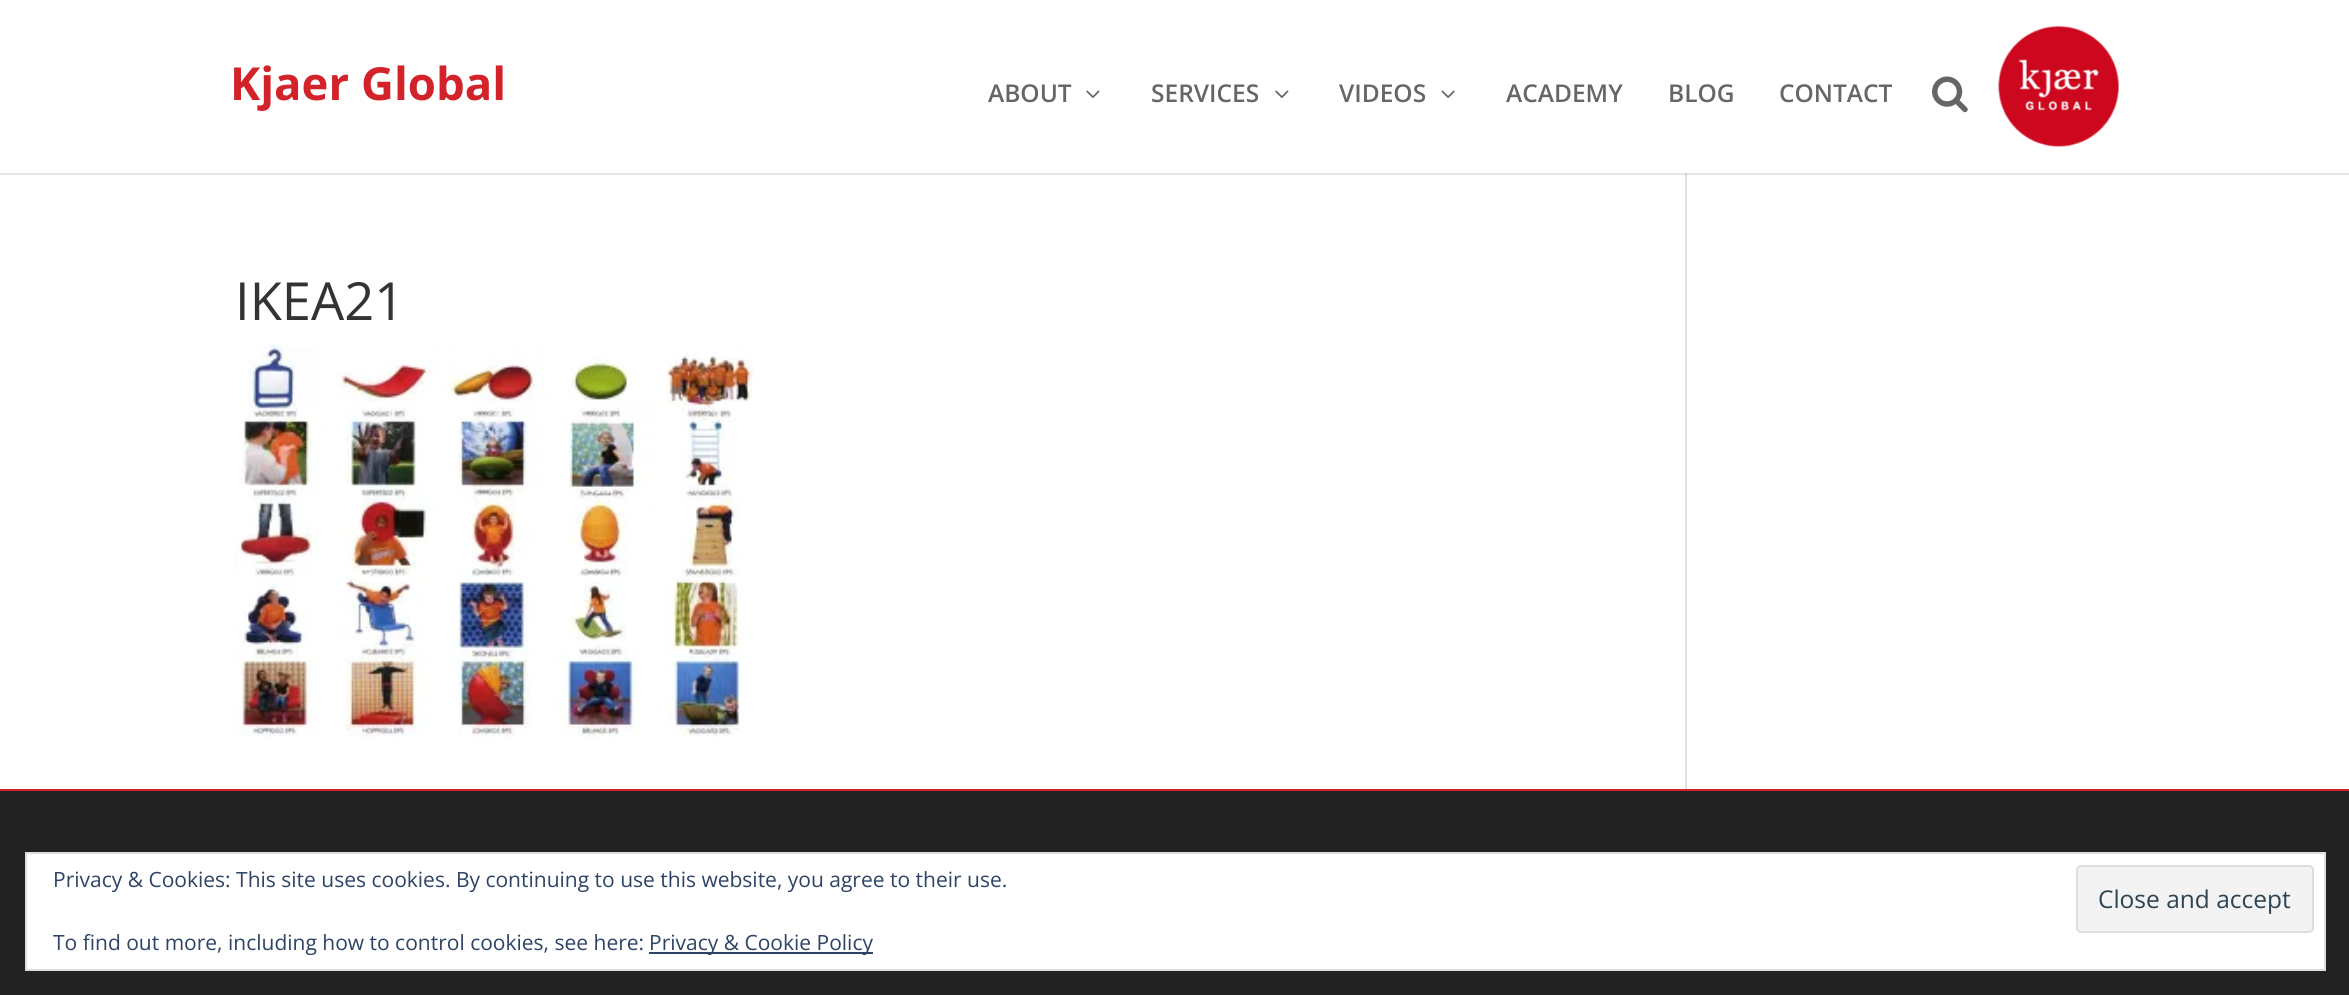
#include <cairo.h>
#include <math.h>
#include <stddef.h>

static cairo_t *c;
static void C(unsigned color){cairo_set_source_rgb(c, (color >> 16) / 255.0, (color >> 8 & 255) / 255.0, (color & 255) / 255.0);}
static void F(const char *family, double size, int italic, int bold){cairo_select_font_face(c, family, italic ? CAIRO_FONT_SLANT_ITALIC : CAIRO_FONT_SLANT_NORMAL,bold ? CAIRO_FONT_WEIGHT_BOLD : CAIRO_FONT_WEIGHT_NORMAL);cairo_set_font_size(c, size);}
static void T(double x, double y, const char *s){cairo_move_to(c, x, y);cairo_show_text(c, s);}
static void R(double x, double y, double w, double h){cairo_rectangle(c, x, y, w, h);cairo_fill(c);}
static void Q(double x, double y, double w, double h, double r){cairo_new_sub_path(c);cairo_arc(c, x + w - r, y + h - r, r, 0, M_PI / 2);cairo_arc(c, x + r, y + h - r, r, M_PI / 2, M_PI);cairo_arc(c, x + r, y + r, r, M_PI, 1.5 * M_PI);cairo_arc(c, x + w - r, y + r, r, 1.5 * M_PI, 2 * M_PI);cairo_close_path(c);}
static void I(const char *path, double x, double y, double w, double h){cairo_surface_t *image = cairo_image_surface_create_from_png(path);cairo_save(c);cairo_set_source_surface(c, image, x, y);cairo_rectangle(c, x, y, w, h);cairo_fill(c);cairo_restore(c);cairo_surface_destroy(image);}
int main(void) {
cairo_surface_t *surface = cairo_image_surface_create(CAIRO_FORMAT_RGB24, 2349, 995);
c = cairo_create(surface);
cairo_font_options_t *options = cairo_font_options_create();
cairo_font_options_set_hint_metrics(options, CAIRO_HINT_METRICS_OFF);
cairo_font_options_set_hint_style(options, CAIRO_HINT_STYLE_NONE);
cairo_set_font_options(c, options);
cairo_set_miter_limit(c, 4);
C(0xffffff);
cairo_paint(c);
C(0xe6e6e6);
R(0,173,2349,2);
F("Open Sans",45.5,0,1);
C(0xd2232a);
T(230,100,"Kjaer Global");
I("1.png",1998,25,121,122);
F("Open Sans SemiBold",24.5,0,0);
C(0x666666);
T(988,102,"ABOUT");
I("2.png",1086,90,14,8);
T(1151,102,"SERVICES");
I("2.png",1275,90,14,8);
T(1339,102,"VIDEOS");
I("3.png",1441,90,14,8);
T(1506,102,"ACADEMY");
T(1668,102,"BLOG");
T(1779,102,"CONTACT");
I("4.png",1932,76,36,37);
F("Open Sans",52.5,0,0);
C(0x333333);
T(235,320,"IKEA21");
I("5.png",234,344,519,393);
C(0xe2e2e2);
R(1685,173,2,616);
C(0xcbcbcb);
R(1685,173,2,2);
C(0x222222);
R(0,791,2349,204);
C(0xd2232a);
R(0,789,2349,2);
C(0xffffff);
cairo_rectangle(c,26,853,2299,117);
cairo_fill_preserve(c);
C(0xdedede);
cairo_stroke(c);
F("Open Sans",21,0,0);
C(0x2e4467);
T(53,887,"Privacy & Cookies: This site uses cookies. By continuing to use this website, you agree to their use.");
C(0xf3f3f3);
Q(2077,866,236,66,4);
cairo_fill_preserve(c);
C(0xdedede);
cairo_stroke(c);
F("Open Sans",24.5,0,0);
C(0x2e4453);
T(2098,908,"Close and accept");
F("Open Sans",21,0,0);
C(0x2e4467);
T(53,950,"To find out more, including how to control cookies, see here:");
R(649,952,224,2);
T(649,950,"Privacy & Cookie Policy");
cairo_surface_write_to_png(surface, "o.png");
cairo_font_options_destroy(options);
cairo_destroy(c);
cairo_surface_destroy(surface);
return 0;
}
